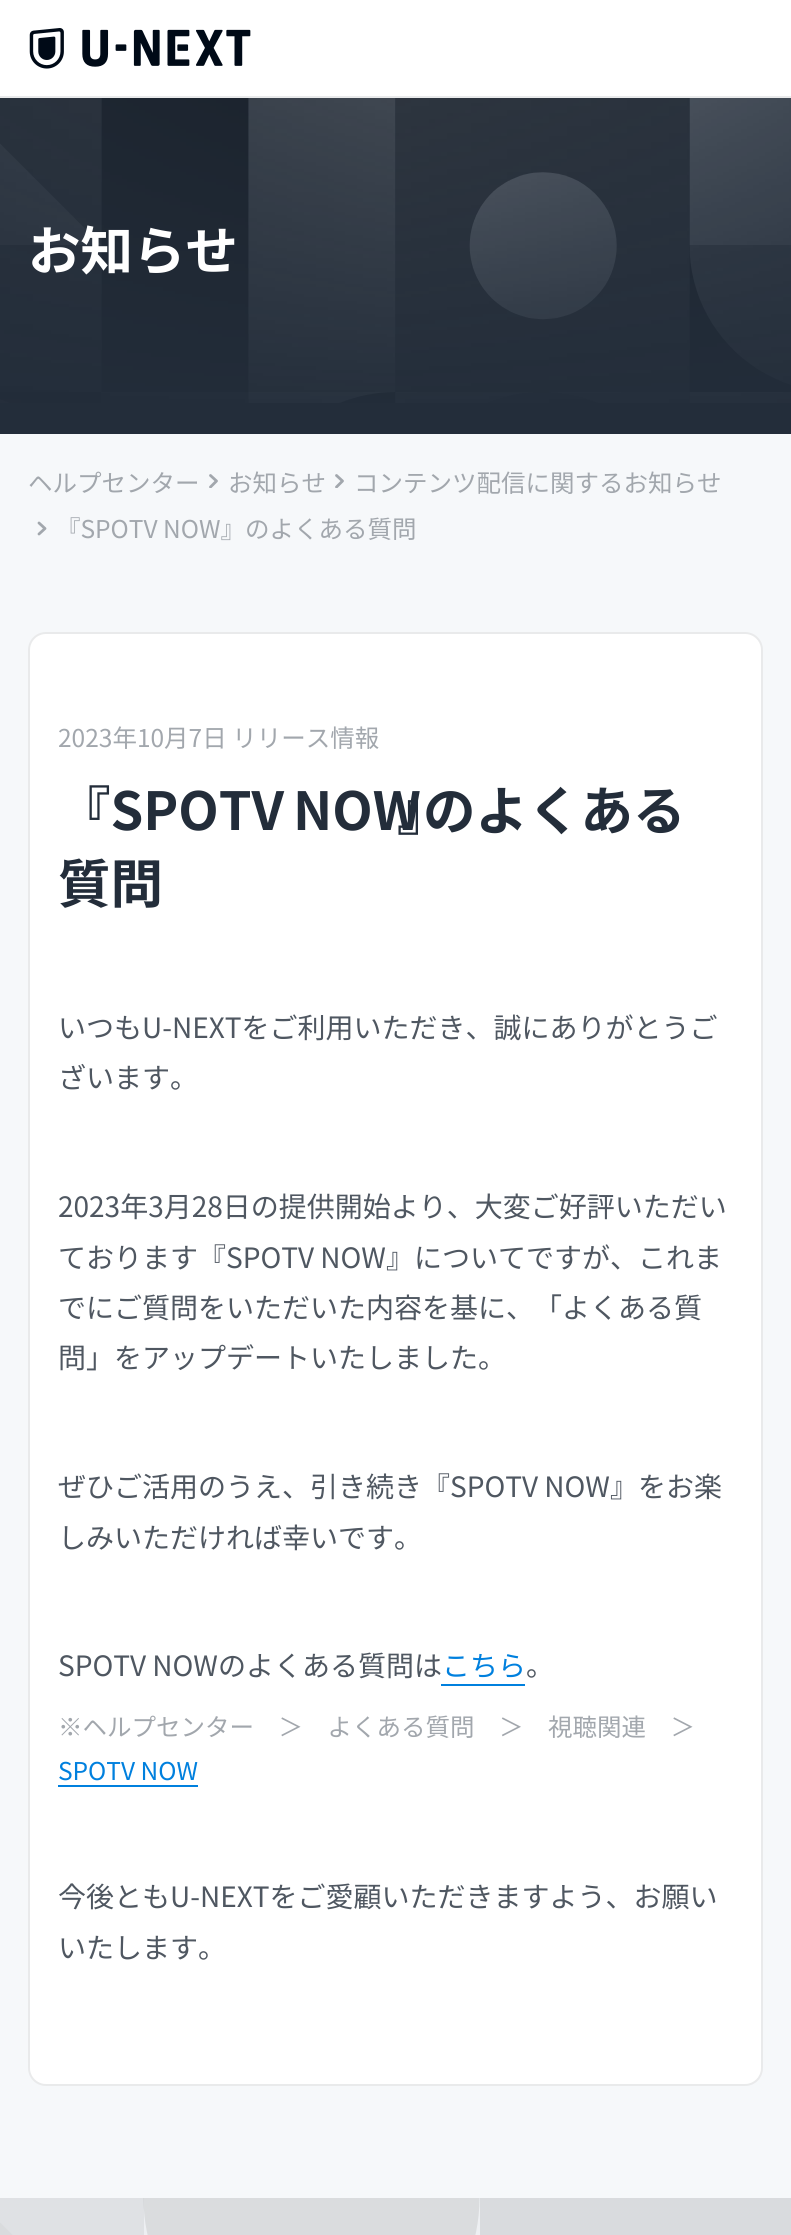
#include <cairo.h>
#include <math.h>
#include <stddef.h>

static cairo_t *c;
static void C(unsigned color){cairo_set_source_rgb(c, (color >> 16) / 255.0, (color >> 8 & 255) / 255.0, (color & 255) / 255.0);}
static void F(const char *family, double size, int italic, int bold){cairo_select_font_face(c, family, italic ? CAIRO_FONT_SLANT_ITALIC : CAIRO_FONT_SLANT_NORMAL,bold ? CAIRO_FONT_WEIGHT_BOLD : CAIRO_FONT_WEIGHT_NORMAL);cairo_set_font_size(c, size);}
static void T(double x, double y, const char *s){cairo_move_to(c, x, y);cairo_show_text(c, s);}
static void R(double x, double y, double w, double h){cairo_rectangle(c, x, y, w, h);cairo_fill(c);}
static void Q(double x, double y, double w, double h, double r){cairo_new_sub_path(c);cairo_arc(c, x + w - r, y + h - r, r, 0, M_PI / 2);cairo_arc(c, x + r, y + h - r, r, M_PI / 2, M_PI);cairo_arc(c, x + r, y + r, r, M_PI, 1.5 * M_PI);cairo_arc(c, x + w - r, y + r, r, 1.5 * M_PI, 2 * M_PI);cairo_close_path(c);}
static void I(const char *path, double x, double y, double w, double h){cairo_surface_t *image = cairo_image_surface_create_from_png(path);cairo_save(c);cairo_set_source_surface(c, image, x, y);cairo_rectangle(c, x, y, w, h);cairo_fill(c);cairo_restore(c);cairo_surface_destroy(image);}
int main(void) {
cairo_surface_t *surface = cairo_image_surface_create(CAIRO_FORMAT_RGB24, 791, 2235);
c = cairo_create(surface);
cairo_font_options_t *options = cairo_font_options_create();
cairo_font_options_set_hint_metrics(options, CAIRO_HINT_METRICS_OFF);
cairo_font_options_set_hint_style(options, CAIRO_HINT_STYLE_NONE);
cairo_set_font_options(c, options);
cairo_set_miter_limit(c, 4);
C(0xf6f8fa);
cairo_paint(c);
C(0xffffff);
R(0,0,791,96);
I("1.png",29,28,222,41);
C(0xe9eaeb);
R(0,96,791,2);
C(0x232d3a);
R(0,98,791,336);
I("2.png",0,98,791,305);
F("Noto Sans JP",52.5,0,1);
C(0xffffff);
T(28,270,"お知らせ");
F("Noto Sans JP",24.5,0,0);
C(0xa2a7ad);
T(28,492,"ヘルプセンター");
cairo_save(c);
cairo_rectangle(c,207,474,14,14);
cairo_clip(c);
cairo_new_path(c);
cairo_move_to(c,210.5,487);
cairo_line_to(c,216.5,481);
cairo_line_to(c,210.5,475.5);
cairo_set_line_width(c,2.8);
cairo_set_line_cap(c,CAIRO_LINE_CAP_ROUND);
cairo_set_line_join(c,CAIRO_LINE_JOIN_ROUND);
cairo_stroke(c);
cairo_restore(c);
T(228,492,"お知らせ");
cairo_save(c);
cairo_rectangle(c,333,474,14,14);
cairo_clip(c);
cairo_new_path(c);
cairo_move_to(c,336.5,487);
cairo_line_to(c,342.5,481);
cairo_line_to(c,336.5,475.5);
cairo_set_line_width(c,2.8);
cairo_set_line_cap(c,CAIRO_LINE_CAP_ROUND);
cairo_set_line_join(c,CAIRO_LINE_JOIN_ROUND);
cairo_stroke(c);
cairo_restore(c);
T(354,492,"コンテンツ配信に関するお知らせ");
cairo_new_path(c);
cairo_move_to(c,39,534);
cairo_line_to(c,45,528.5);
cairo_line_to(c,39,523);
cairo_set_line_width(c,2.8);
cairo_set_line_cap(c,CAIRO_LINE_CAP_ROUND);
cairo_set_line_join(c,CAIRO_LINE_JOIN_ROUND);
cairo_stroke(c);
T(56,538,"『SPOTV NOW』のよくある質問");
C(0xffffff);
Q(28,632,735,1454,18);
cairo_fill(c);
Q(29,633,733,1452,17);
cairo_set_source_rgba(c,0.137,0.176,0.227,0.1);
cairo_set_line_width(c,2);
cairo_set_line_cap(c,CAIRO_LINE_CAP_BUTT);
cairo_set_line_join(c,CAIRO_LINE_JOIN_MITER);
cairo_stroke(c);
C(0xa2a7ad);
T(58,747,"2023年10月7日 リリース情報");
F("Noto Sans JP",52.5,0,1);
C(0x232d3a);
T(58,830,"『SPOTV");
T(293,830,"NOW");
T(397,830,"』");
T(423,830,"のよくある");
T(58,903,"質問");
F("Noto Sans JP",28,0,0);
C(0x4f5761);
T(58,1038,"いつもU-NEXTをご利用いただき、誠にありがとうご");
T(58,1088,"ざいます。");
T(58,1217,"2023年3月28日の提供開始より、大変ご好評いただい");
T(58,1268,"ております『SPOTV NOW』についてですが、これま");
T(58,1318,"でにご質問をいただいた内容を基に、「よくある質");
T(58,1368,"問」をアップデートいたしました。");
T(58,1497,"ぜひご活用のうえ、引き続き『SPOTV NOW』をお楽");
T(58,1548,"しみいただければ幸いです。");
T(58,1676,"SPOTV NOWのよくある質問は");
C(0x0080de);
T(442,1676,"こちら");
R(441,1684,84,2);
C(0x4f5761);
T(526,1676,"。");
F("Noto Sans JP",24.5,0,0);
C(0xa2a7ad);
T(58,1736,"※ヘルプセンター　＞　よくある質問　＞　視聴関連　＞");
C(0x0080de);
T(58,1780,"SPOTV NOW");
R(58,1785,140,2);
F("Noto Sans JP",28,0,0);
C(0x4f5761);
T(58,1907,"今後ともU-NEXTをご愛顧いただきますよう、お願い");
T(58,1958,"いたします。");
I("3.png",0,2198,791,37);
cairo_surface_write_to_png(surface, "o.png");
cairo_font_options_destroy(options);
cairo_destroy(c);
cairo_surface_destroy(surface);
return 0;
}
